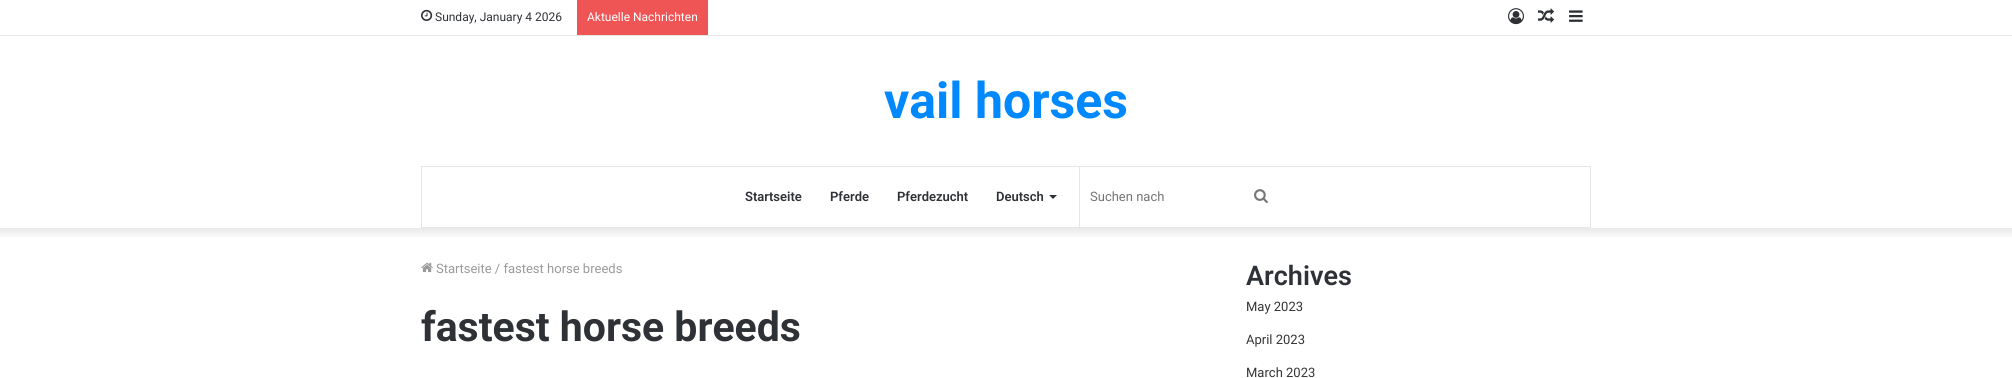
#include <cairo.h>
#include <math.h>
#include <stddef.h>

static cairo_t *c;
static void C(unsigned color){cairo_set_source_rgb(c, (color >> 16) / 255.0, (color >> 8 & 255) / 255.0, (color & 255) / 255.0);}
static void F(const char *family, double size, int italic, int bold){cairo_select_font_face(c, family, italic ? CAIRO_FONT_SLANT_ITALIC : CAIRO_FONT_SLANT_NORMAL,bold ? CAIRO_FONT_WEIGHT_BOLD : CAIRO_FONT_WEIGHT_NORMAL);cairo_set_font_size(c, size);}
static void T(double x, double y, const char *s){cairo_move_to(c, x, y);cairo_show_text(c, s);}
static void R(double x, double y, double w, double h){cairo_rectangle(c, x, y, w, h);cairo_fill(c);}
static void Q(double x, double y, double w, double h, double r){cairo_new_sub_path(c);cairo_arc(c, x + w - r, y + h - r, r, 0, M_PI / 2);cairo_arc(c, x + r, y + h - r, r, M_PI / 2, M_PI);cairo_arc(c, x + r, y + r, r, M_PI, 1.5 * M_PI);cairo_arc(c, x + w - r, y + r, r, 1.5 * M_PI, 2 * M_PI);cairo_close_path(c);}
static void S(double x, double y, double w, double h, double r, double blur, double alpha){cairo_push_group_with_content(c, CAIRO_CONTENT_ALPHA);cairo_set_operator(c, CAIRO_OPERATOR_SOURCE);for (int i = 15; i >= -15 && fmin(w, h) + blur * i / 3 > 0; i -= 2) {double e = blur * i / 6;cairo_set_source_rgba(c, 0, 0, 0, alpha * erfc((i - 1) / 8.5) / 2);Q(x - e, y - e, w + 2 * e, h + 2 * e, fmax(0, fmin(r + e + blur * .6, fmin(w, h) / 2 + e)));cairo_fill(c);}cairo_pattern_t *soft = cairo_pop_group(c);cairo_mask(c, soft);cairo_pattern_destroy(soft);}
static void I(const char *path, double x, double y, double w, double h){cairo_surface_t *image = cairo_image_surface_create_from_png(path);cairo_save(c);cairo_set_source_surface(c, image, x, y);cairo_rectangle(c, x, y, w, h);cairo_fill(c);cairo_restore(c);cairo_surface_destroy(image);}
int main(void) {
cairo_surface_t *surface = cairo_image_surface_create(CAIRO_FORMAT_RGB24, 2012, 378);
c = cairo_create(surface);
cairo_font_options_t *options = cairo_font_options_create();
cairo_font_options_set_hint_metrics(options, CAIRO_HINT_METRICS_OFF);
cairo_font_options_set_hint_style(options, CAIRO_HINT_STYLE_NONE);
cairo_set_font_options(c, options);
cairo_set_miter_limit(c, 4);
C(0xffffff);
cairo_paint(c);
cairo_save(c);
cairo_rectangle(c,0,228,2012,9);
cairo_clip(c);
C(0x000000);
S(-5,-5,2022,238,0,5,.1);
cairo_restore(c);
C(0xe6e6e6);
R(0,35,2012,1);
I("1.png",421,9,12,12);
F("Roboto",12,0,0);
C(0x2e3136);
T(435,21,"Sunday, January 4 2026");
C(0xf05555);
R(577,0,131,35);
C(0xffffff);
T(587,21,"Aktuelle Nachrichten");
I("2.png",1508,8,16,17);
I("3.png",1538,8,16,15);
I("4.png",1569,10,14,12);
F("Roboto",50,0,1);
C(0x0088ff);
T(884,118,"vail horses");
cairo_rectangle(c,421.5,166.5,1169,61);
C(0xe6e6e6);
cairo_set_line_width(c,1);
cairo_stroke(c);
F("Roboto SemiBold",13,0,0);
C(0x2e3136);
T(745,201,"Startseite");
T(830,201,"Pferde");
T(897,201,"Pferdezucht");
T(996,201,"Deutsch");
C(0x2c2f34);
cairo_new_path(c);
cairo_move_to(c,1049,195);
cairo_line_to(c,1057,195);
cairo_line_to(c,1053,199);
cairo_close_path(c);
cairo_fill(c);
C(0xe6e6e6);
R(1079,167,1,60);
F("Roboto",13,0,0);
C(0x757575);
T(1090,201,"Suchen nach");
I("5.png",1254,189,14,14);
I("6.png",421,262,12,11);
C(0x9a9a9a);
T(436,273,"Startseite / fastest horse breeds");
F("Roboto",41,0,1);
C(0x2e3136);
T(421,341,"fastest horse breeds");
F("Roboto SemiBold",27,0,0);
T(1246,285,"Archives");
F("Roboto",13,0,0);
C(0x353535);
T(1246,311,"May 2023");
T(1246,344,"April 2023");
T(1246,377,"March 2023");
cairo_surface_write_to_png(surface, "o.png");
cairo_font_options_destroy(options);
cairo_destroy(c);
cairo_surface_destroy(surface);
return 0;
}
